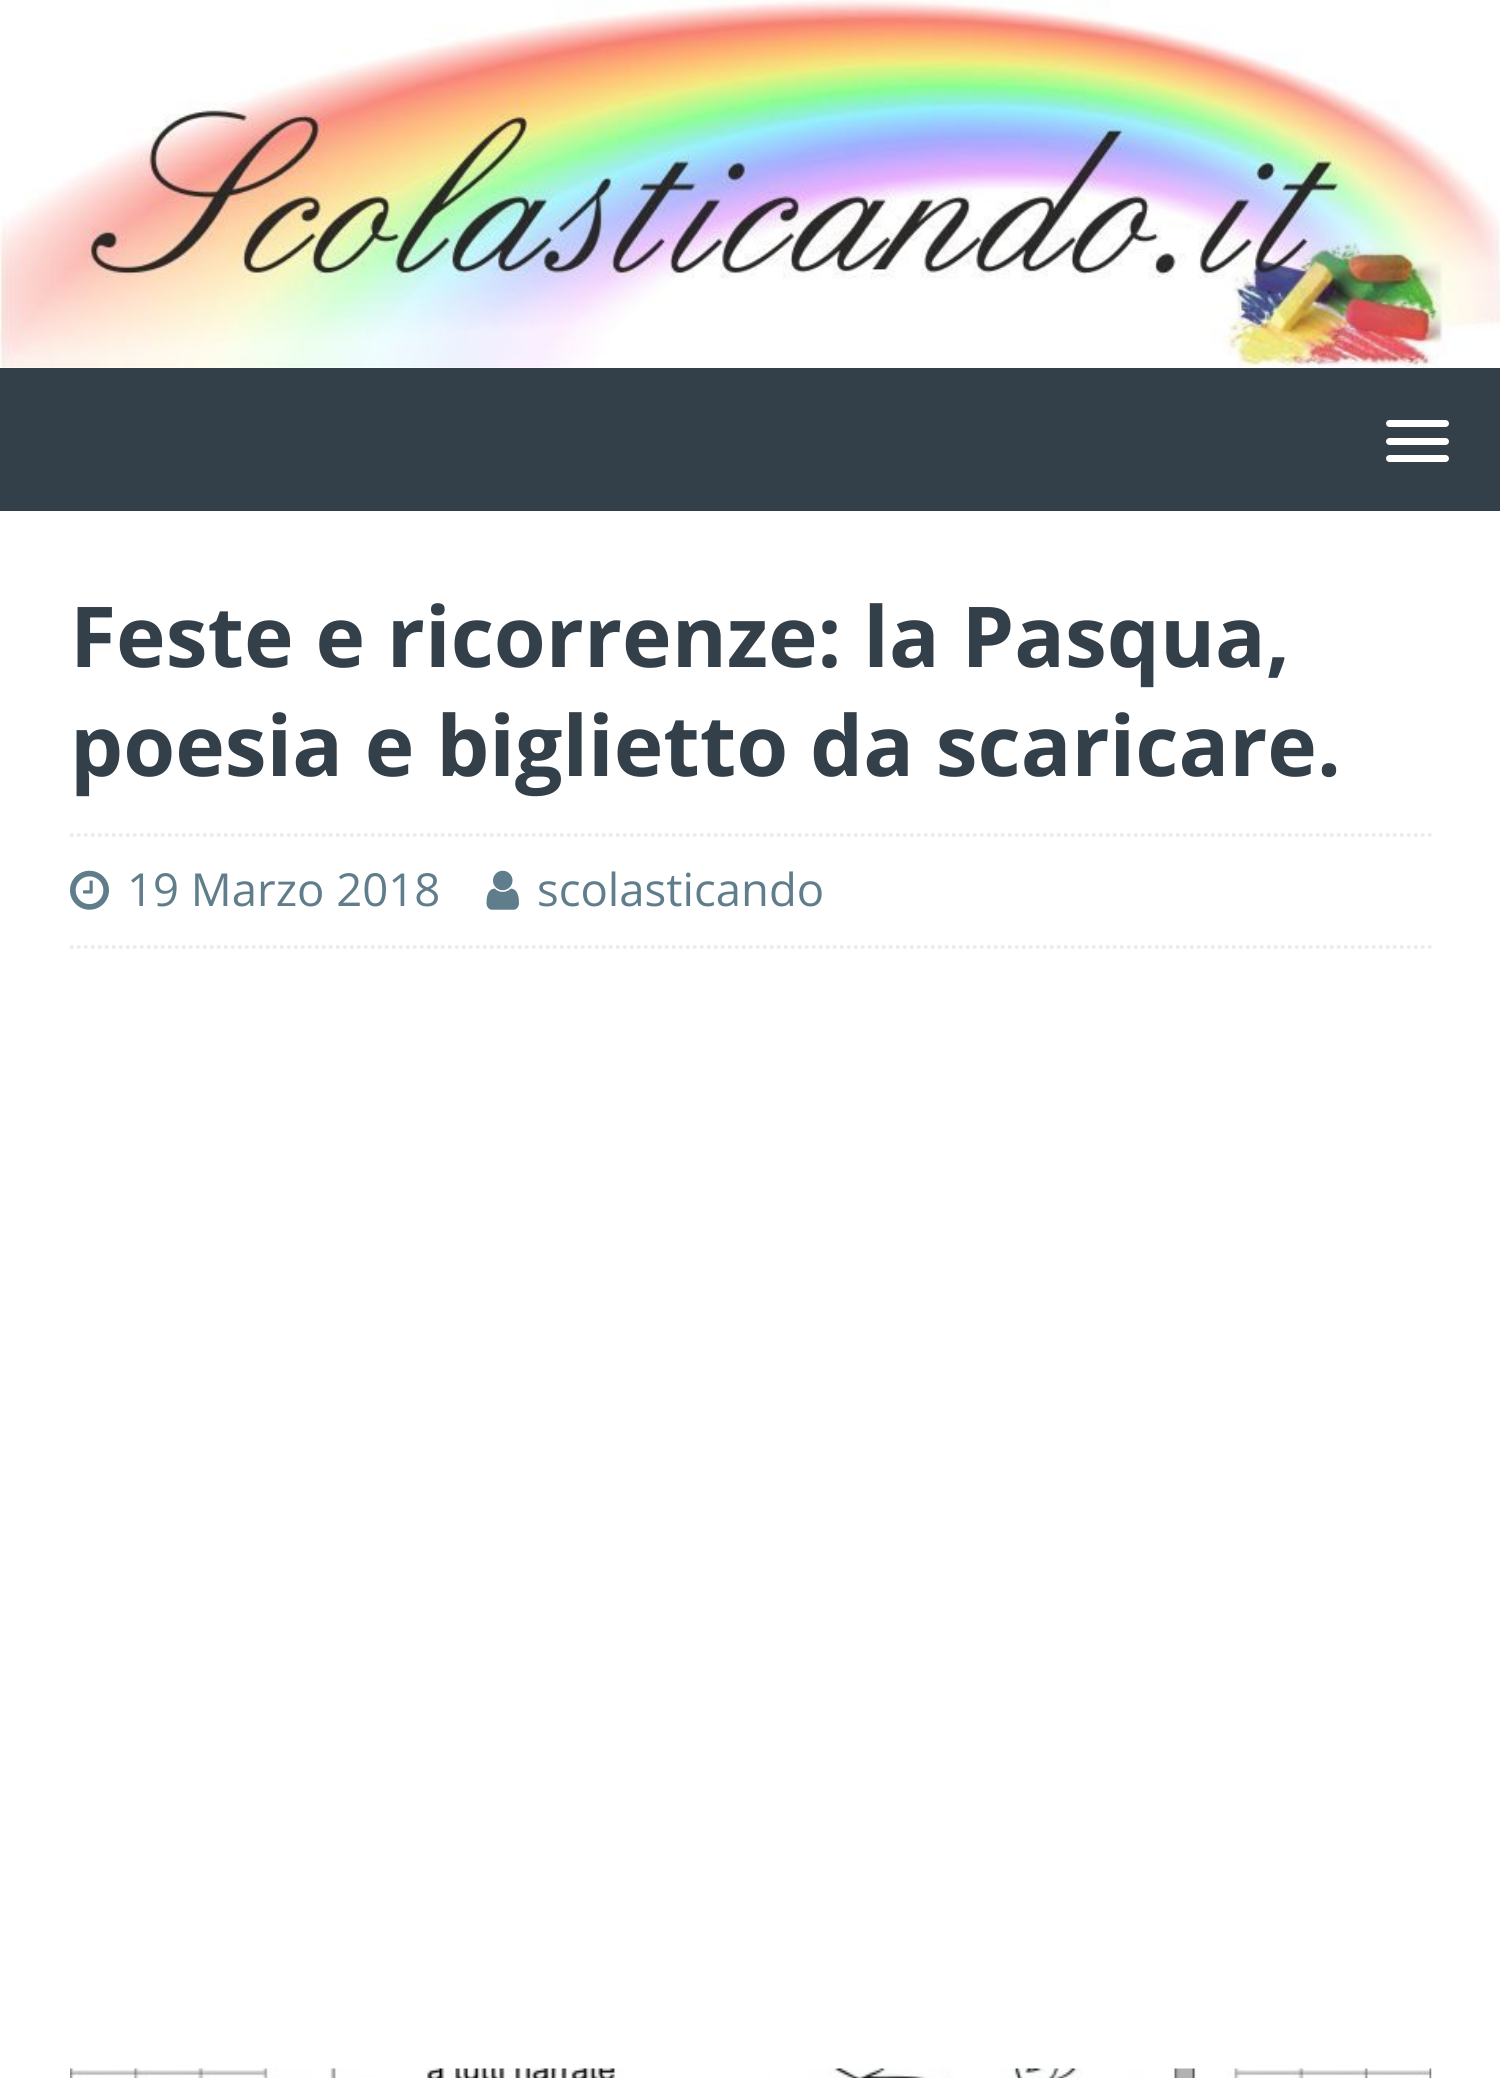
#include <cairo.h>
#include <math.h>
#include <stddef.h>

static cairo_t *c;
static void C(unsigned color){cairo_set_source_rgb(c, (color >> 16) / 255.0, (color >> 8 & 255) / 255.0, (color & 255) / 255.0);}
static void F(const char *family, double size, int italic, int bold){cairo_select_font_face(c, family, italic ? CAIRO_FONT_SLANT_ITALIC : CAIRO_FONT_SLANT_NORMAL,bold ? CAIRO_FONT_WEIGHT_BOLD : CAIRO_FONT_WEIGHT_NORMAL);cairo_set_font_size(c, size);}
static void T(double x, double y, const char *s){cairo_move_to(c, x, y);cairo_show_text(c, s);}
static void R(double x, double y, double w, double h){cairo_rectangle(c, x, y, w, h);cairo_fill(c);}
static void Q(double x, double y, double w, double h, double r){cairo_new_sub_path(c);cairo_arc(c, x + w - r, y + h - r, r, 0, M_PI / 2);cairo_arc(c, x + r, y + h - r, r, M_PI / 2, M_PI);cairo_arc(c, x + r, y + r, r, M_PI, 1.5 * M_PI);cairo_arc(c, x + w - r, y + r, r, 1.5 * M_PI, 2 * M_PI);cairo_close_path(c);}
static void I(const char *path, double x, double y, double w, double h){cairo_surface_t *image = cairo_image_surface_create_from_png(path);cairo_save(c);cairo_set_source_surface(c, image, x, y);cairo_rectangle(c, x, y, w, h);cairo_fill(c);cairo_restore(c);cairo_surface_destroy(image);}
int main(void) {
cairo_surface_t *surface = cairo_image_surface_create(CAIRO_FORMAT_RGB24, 1500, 2078);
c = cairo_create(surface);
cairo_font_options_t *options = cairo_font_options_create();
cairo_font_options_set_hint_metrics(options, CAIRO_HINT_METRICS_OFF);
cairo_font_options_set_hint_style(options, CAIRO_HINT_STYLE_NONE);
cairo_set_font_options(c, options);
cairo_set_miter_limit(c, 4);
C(0xffffff);
cairo_paint(c);
I("1.png",0,0,1500,368);
C(0x333f49);
R(0,368,1500,143);
C(0xffffff);
Q(1386,420,63,7,3.5);
cairo_fill(c);
Q(1386,438,63,7,3.5);
cairo_fill(c);
Q(1386,455,63,7,3.5);
cairo_fill(c);
F("Open Sans",84,0,1);
C(0x333f49);
T(70,667,"Feste e ricorrenze: la Pasqua,");
T(70,776,"poesia e biglietto da scaricare.");
cairo_new_path(c);
cairo_move_to(c,70,835);
cairo_line_to(c,1431.5,835);
C(0xebebeb);
cairo_set_line_width(c,3.5);
cairo_set_dash(c,(double[]){3.5,3.5},2,0);
cairo_stroke(c);
cairo_new_path(c);
cairo_move_to(c,70,947);
cairo_line_to(c,1431.5,947);
cairo_stroke(c);
I("2.png",70,870,39,40);
F("Open Sans",45.5,0,0);
C(0x607d8b);
T(127,906,"19 Marzo 2018");
I("3.png",486,870,33,40);
T(537,906,"scolasticando");
I("4.png",70,2068,1362,10);
cairo_surface_write_to_png(surface, "o.png");
cairo_font_options_destroy(options);
cairo_destroy(c);
cairo_surface_destroy(surface);
return 0;
}
